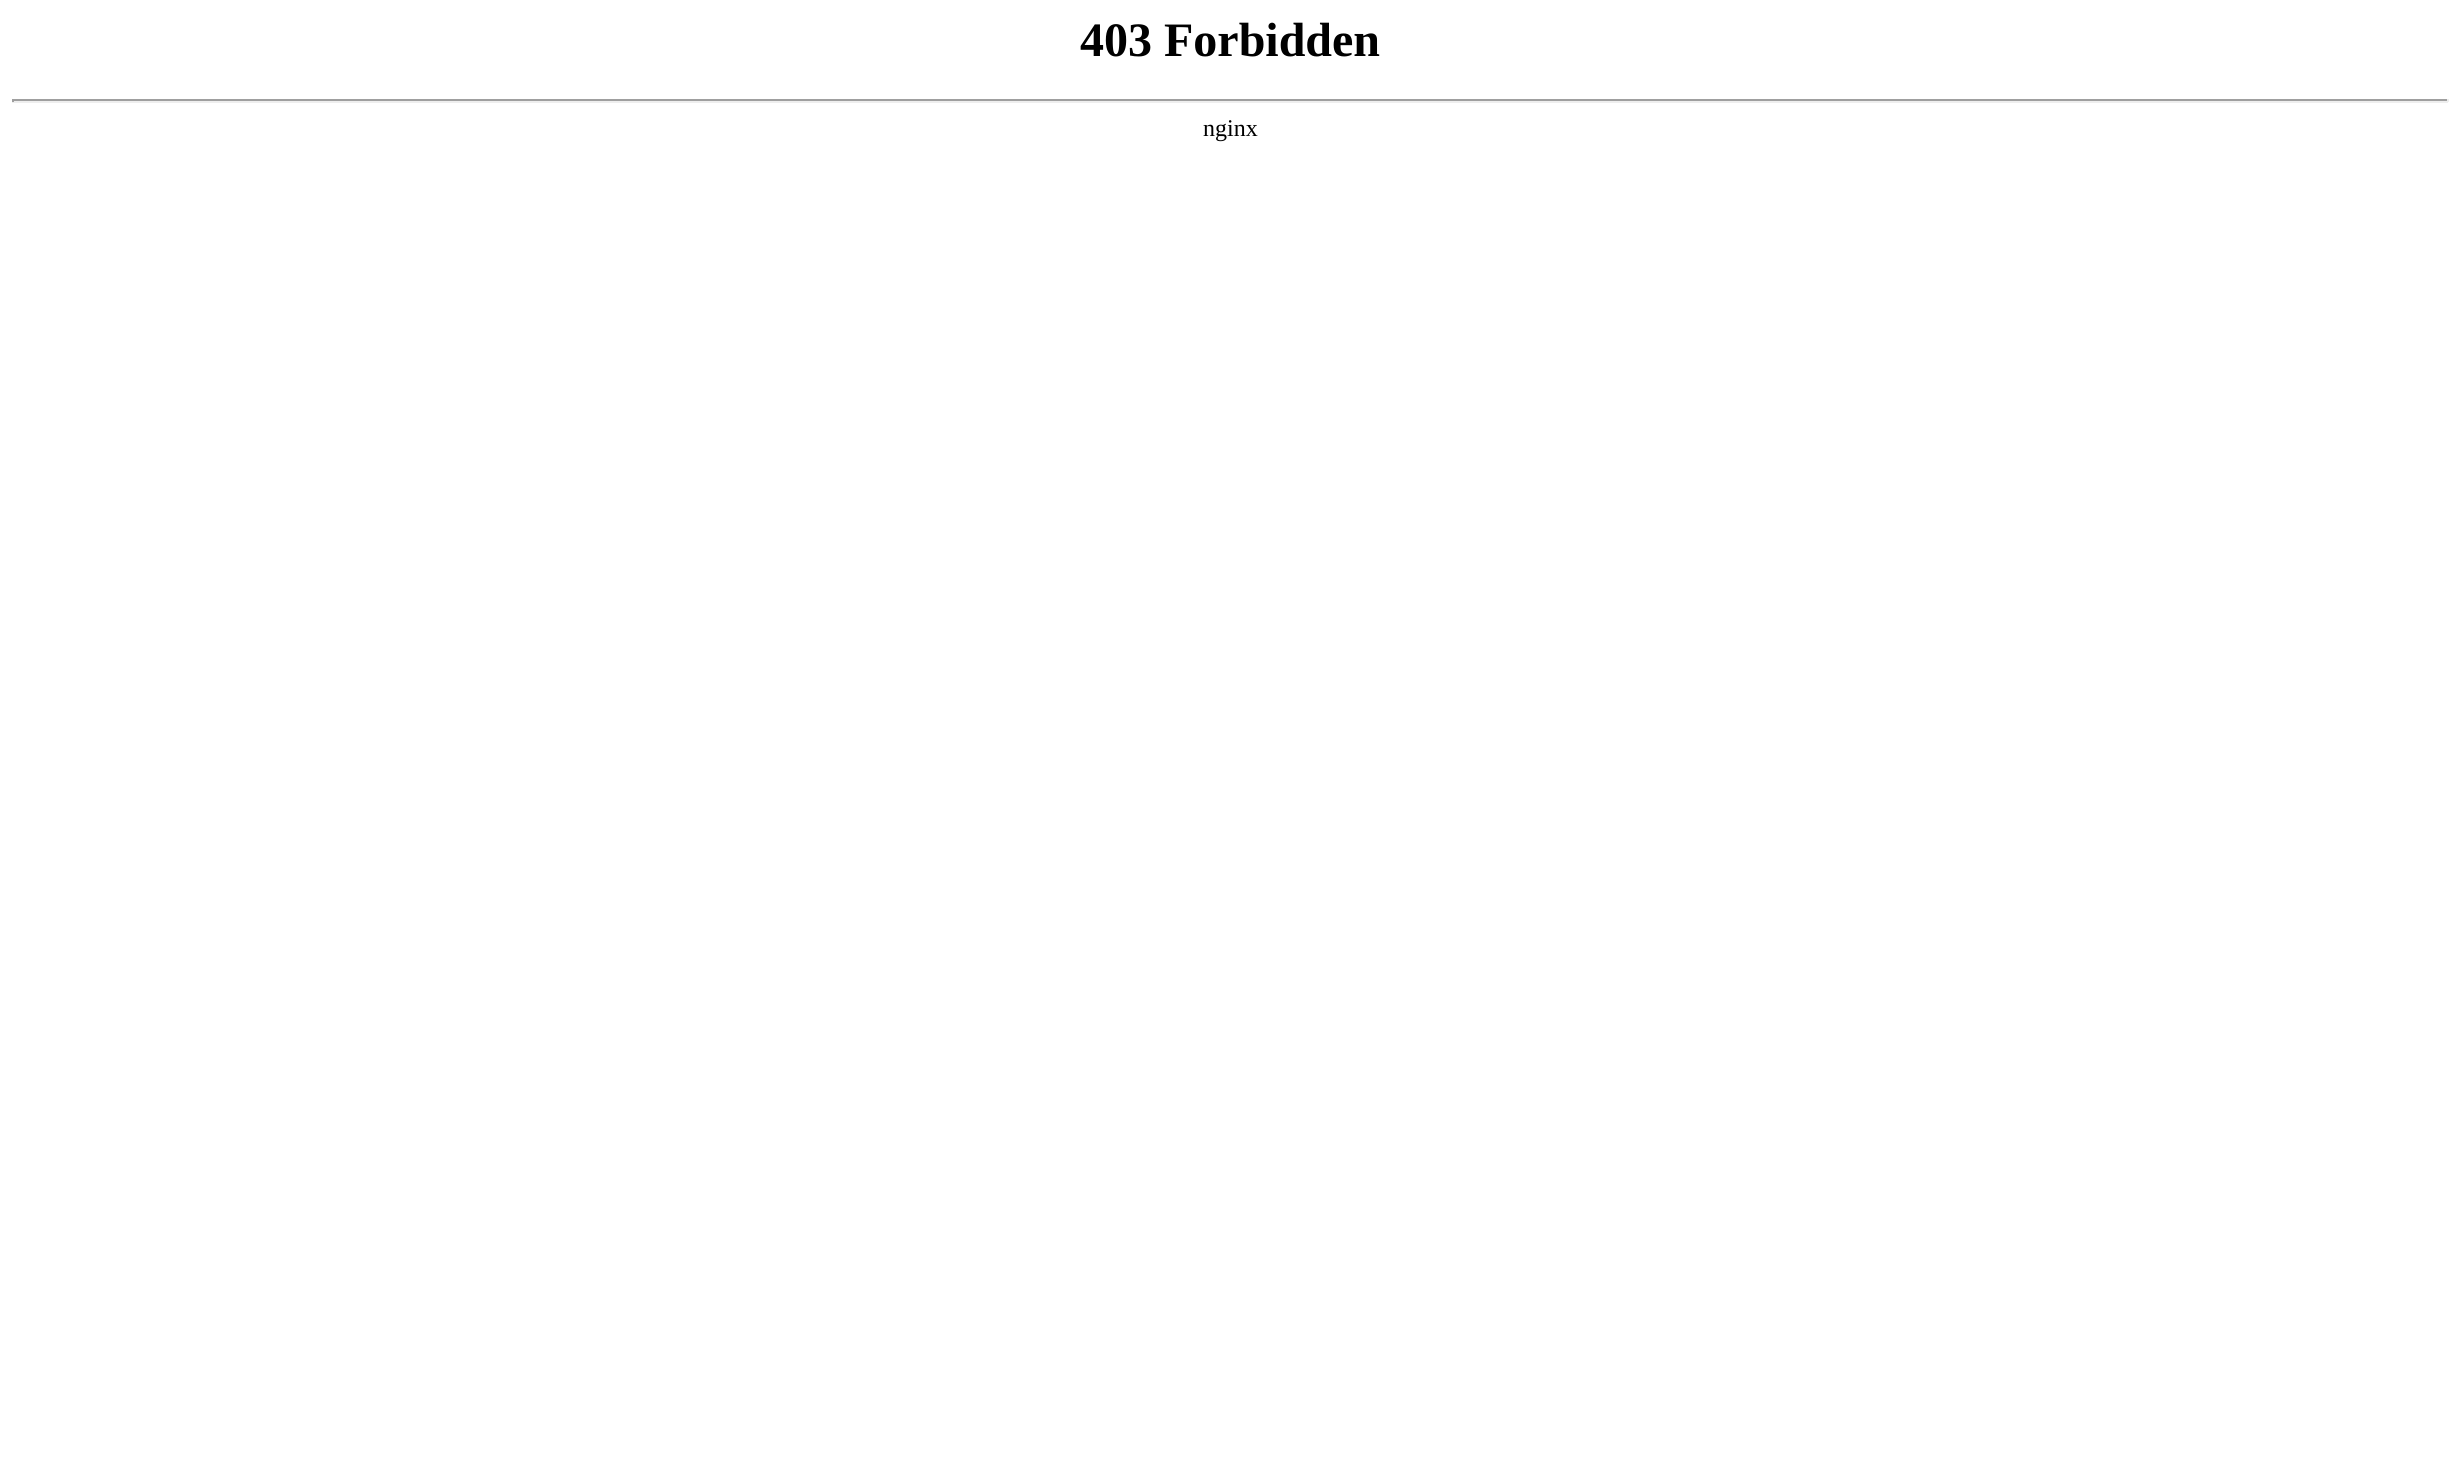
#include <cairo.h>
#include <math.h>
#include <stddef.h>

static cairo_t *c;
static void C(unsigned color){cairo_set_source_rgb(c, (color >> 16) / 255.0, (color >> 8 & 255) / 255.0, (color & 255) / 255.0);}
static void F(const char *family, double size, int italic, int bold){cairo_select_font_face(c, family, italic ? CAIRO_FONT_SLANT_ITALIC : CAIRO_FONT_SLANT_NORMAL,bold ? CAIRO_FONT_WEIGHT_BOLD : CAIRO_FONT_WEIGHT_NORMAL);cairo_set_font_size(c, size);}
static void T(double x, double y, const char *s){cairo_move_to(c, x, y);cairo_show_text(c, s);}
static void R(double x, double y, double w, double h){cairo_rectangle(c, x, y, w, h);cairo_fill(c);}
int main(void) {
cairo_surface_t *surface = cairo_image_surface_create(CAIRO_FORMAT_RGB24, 2459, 1475);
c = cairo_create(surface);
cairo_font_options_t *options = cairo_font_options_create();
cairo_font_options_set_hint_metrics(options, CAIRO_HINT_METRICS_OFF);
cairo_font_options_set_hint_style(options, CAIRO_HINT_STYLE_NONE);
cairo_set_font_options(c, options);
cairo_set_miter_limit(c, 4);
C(0xffffff);
cairo_paint(c);
F("Liberation Serif",48,0,1);
C(0x000000);
T(1080,56,"403 Forbidden");
C(0x9f9f9f);
R(12,99,2436,2);
C(0xeeeeee);
R(2447,99,2,3);
R(12,101,2436,2);
C(0x9f9f9f);
R(12,99,2,3);
F("Liberation Serif",24,0,0);
C(0x000000);
T(1203,136,"nginx");
cairo_surface_write_to_png(surface, "o.png");
cairo_font_options_destroy(options);
cairo_destroy(c);
cairo_surface_destroy(surface);
return 0;
}
